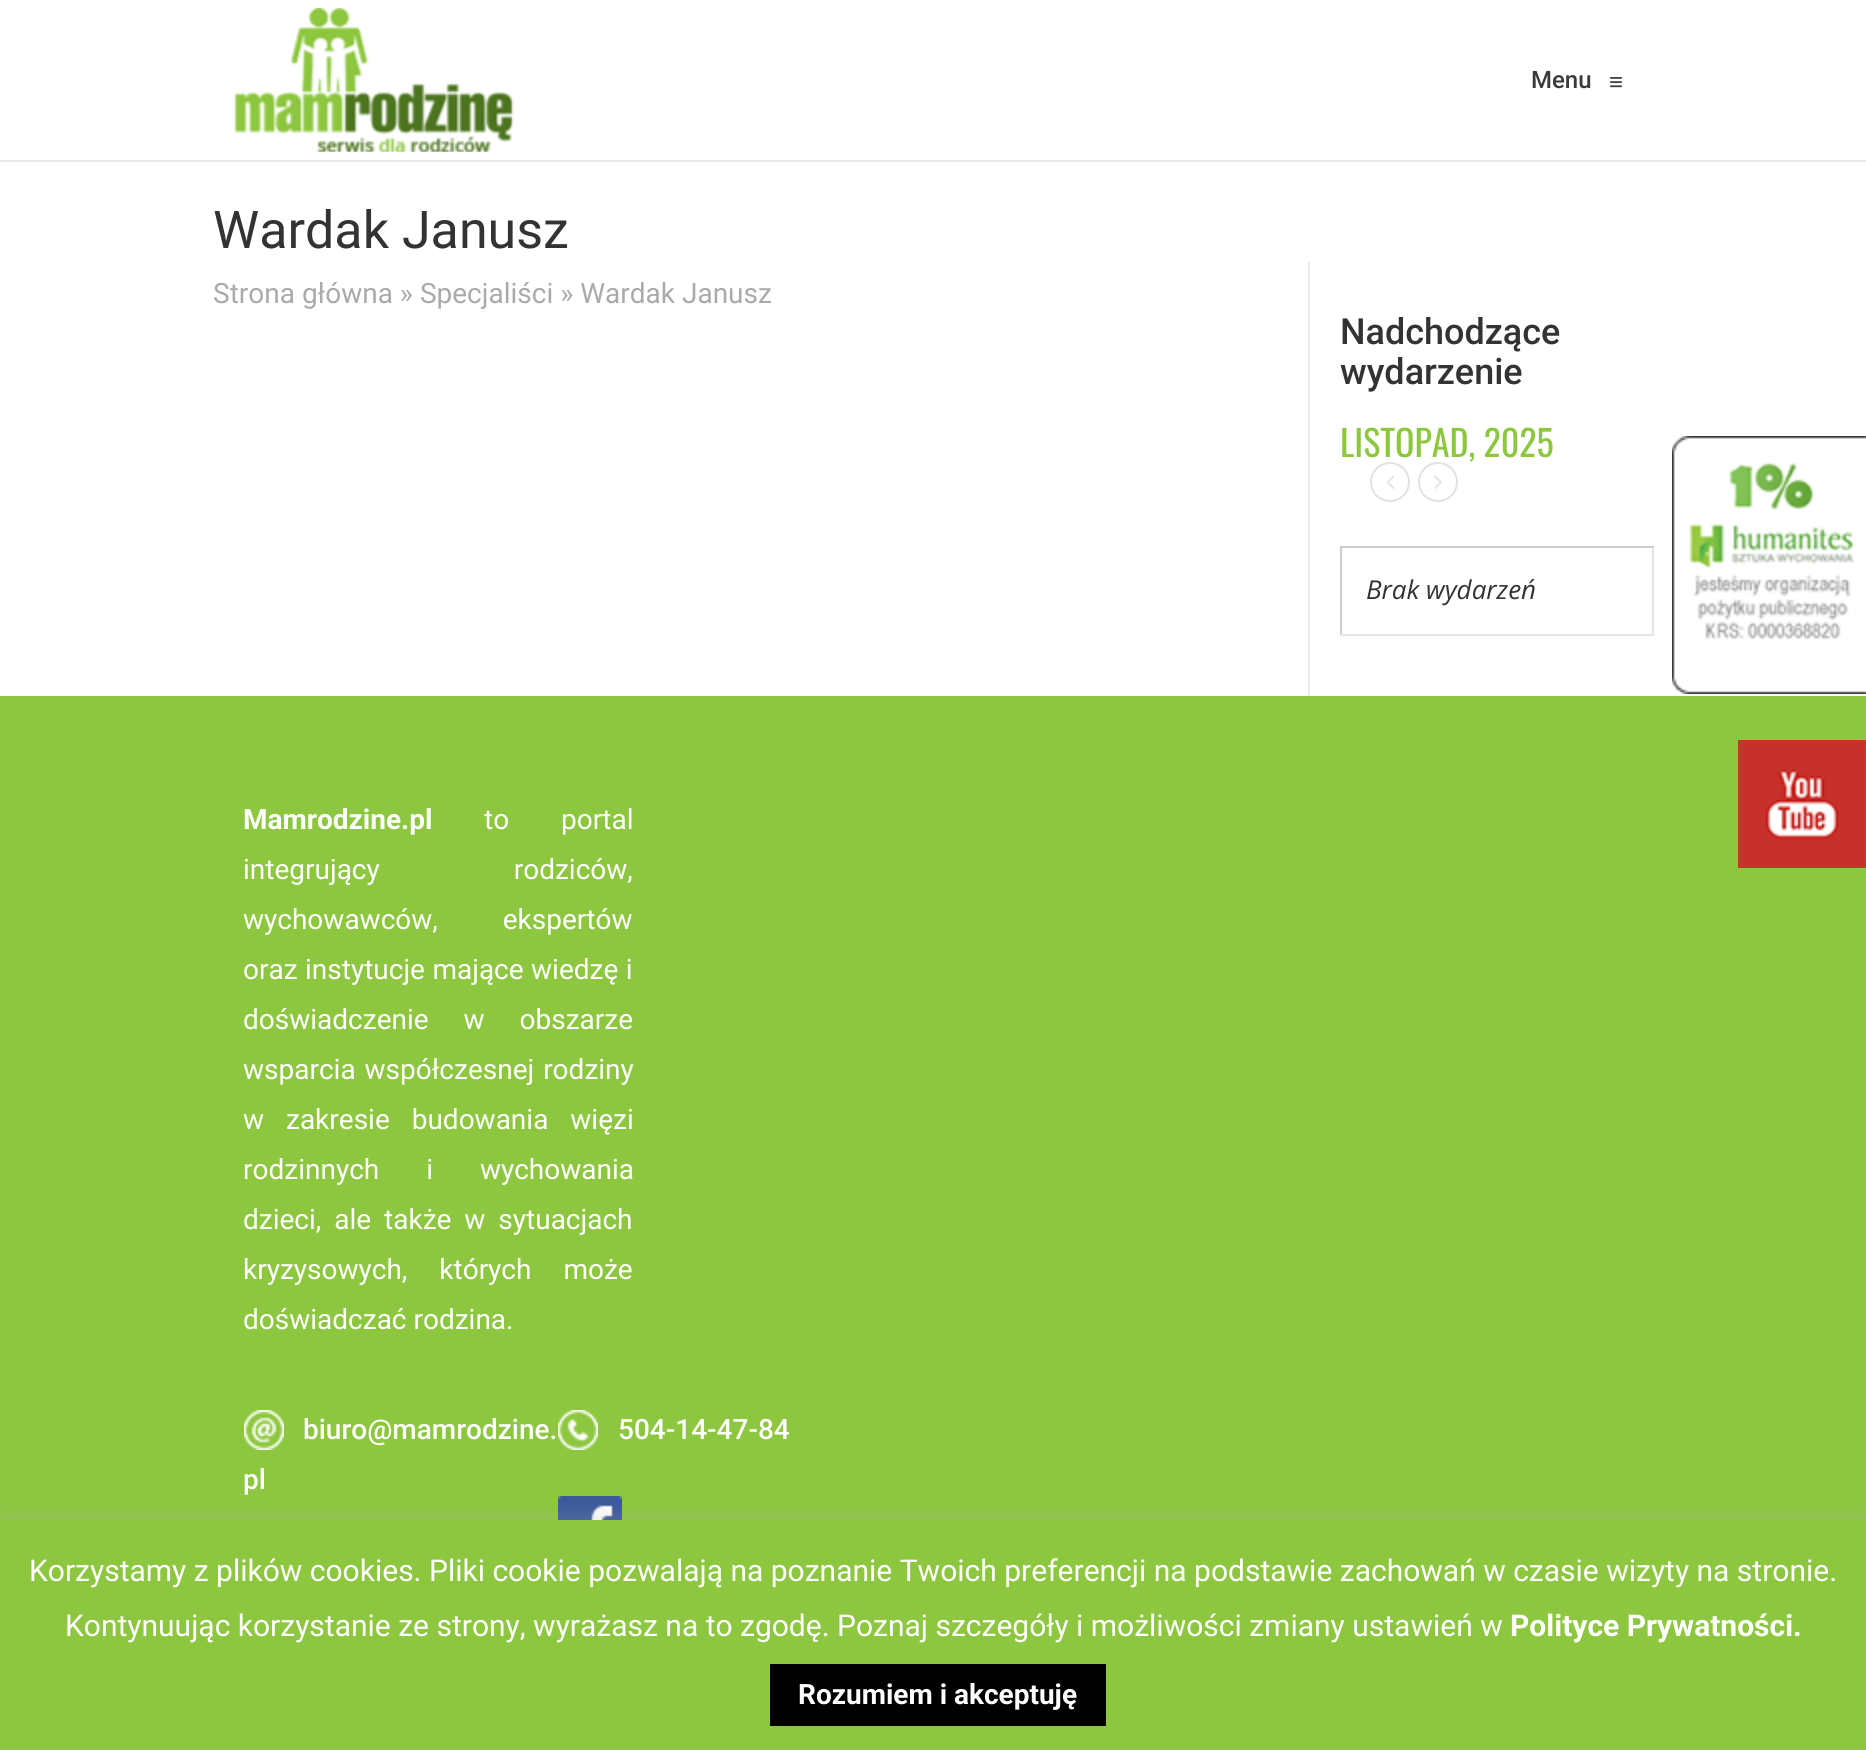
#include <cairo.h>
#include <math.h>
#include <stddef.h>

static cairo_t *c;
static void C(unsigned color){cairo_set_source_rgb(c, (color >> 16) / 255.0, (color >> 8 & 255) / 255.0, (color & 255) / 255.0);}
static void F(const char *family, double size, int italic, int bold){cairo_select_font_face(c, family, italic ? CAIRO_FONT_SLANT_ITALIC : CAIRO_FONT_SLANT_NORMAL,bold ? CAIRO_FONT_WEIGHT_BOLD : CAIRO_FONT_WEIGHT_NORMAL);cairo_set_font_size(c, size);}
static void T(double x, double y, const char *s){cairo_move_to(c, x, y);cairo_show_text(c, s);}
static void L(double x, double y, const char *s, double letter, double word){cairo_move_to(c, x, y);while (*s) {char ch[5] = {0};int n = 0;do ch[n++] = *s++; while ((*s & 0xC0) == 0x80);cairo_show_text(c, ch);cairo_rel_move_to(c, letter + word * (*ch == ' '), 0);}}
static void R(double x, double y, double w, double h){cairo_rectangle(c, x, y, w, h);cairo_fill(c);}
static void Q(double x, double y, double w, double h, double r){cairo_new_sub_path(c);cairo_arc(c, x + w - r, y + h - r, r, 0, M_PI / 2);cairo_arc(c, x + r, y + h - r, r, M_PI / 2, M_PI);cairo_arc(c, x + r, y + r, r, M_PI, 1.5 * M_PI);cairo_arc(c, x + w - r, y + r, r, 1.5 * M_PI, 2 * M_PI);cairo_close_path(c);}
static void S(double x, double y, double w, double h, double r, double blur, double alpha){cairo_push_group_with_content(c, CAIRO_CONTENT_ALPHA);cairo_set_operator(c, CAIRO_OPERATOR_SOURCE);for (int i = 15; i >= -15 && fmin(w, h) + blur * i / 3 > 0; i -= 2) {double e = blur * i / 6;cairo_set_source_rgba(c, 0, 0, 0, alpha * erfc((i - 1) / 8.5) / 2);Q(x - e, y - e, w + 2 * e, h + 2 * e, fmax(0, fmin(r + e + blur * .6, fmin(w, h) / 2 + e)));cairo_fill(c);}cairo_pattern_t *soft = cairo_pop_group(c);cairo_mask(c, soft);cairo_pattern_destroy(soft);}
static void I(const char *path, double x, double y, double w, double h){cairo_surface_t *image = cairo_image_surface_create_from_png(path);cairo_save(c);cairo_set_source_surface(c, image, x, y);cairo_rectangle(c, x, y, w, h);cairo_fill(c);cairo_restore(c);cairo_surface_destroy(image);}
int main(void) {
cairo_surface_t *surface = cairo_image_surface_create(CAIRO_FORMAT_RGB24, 1866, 1750);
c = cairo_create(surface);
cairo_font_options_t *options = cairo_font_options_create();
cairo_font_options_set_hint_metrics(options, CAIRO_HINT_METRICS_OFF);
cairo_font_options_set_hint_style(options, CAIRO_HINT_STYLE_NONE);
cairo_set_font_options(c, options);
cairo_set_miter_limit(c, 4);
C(0xffffff);
cairo_paint(c);
C(0xe9e9e9);
R(0,160,1866,2);
I("1.png",233,8,281,144);
F("Roboto Medium",24,0,0);
C(0x3a3a3a);
T(1531,88,"Menu");
F("Liberation Sans",24,0,0);
T(1609,90,"≡");
F("Roboto",52,0,0);
C(0x333333);
T(213,248,"Wardak Janusz");
F("Roboto",28,0,0);
C(0xaaaaaa);
T(213,303,"Strona główna » Specjaliści » Wardak Janusz");
C(0xebebeb);
R(1308,262,2,434);
F("Roboto Medium",36,0,0);
C(0x333333);
T(1340,344,"Nadchodzące");
T(1340,384,"wydarzenie");
F("Oswald",36,0,0);
C(0x8cc73d);
T(1340,457,"LISTOPAD, 2025");
cairo_new_path(c);
cairo_arc(c,1390,482,19,0,2 * M_PI);
C(0xe2e2e2);
cairo_stroke(c);
I("2.png",1386,475,9,14);
cairo_arc(c,1438,482,19,0,2 * M_PI);
cairo_stroke(c);
I("3.png",1434,475,8,14);
C(0xcdcdcd);
R(1340,546,314,2);
C(0xe5e5e5);
R(1652,548,2,88);
R(1340,634,314,2);
C(0xcdcdcd);
R(1340,548,2,86);
F("Open Sans",26,1,0);
C(0x333333);
T(1366,599,"Brak wydarzeń");
I("4.png",1672,436,194,258);
C(0x8dc73f);
R(0,696,1866,824);
F("Roboto",28,0,1);
C(0xffffff);
T(243,829,"Mamrodzine.pl");
F("Roboto",28,0,0);
L(484,829,"to portal",0,45);
L(243,879,"integrujący rodziców,",0,127);
L(243,929,"wychowawców, ekspertów",0,58);
L(243,979,"oraz instytucje mające wiedzę i",0,.5);
L(243,1029,"doświadczenie w obszarze",0,28);
L(243,1079,"wsparcia współczesnej rodziny",0,2);
L(243,1129,"w zakresie budowania więzi",0,15);
L(243,1179,"rodzinnych i wychowania",0,40);
L(243,1229,"dzieci, ale także w sytuacjach",0,6);
L(243,1279,"kryzysowych, których może",0,25);
T(243,1329,"doświadczać rodzina.");
I("5.png",244,1410,40,40);
F("Roboto Medium",28,0,0);
T(303,1439,"biuro@mamrodzine.");
T(243,1489,"pl");
I("6.png",558,1410,40,40);
T(618,1439,"504-14-47-84");
I("7.png",558,1496,64,24);
I("8.png",1738,740,128,128);
C(0xacabab);
S(0,1518,1866,230,0,10,.3);
C(0x8dc73f);
R(0,1520,1866,230);
F("Roboto",30,0,0);
C(0xffffff);
T(29,1581,"Korzystamy z plików cookies. Pliki cookie pozwalają na poznanie Twoich preferencji na podstawie zachowań w czasie wizyty na stronie.");
T(65,1636,"Kontynuując korzystanie ze strony, wyrażasz na to zgodę. Poznaj szczegóły i możliwości zmiany ustawień w");
F("Roboto",30,0,1);
T(1510,1636,"Polityce Prywatności.");
C(0x000000);
R(770,1664,336,62);
F("Roboto",28,0,1);
C(0xffffff);
T(798,1704,"Rozumiem i akceptuję");
cairo_surface_write_to_png(surface, "o.png");
cairo_font_options_destroy(options);
cairo_destroy(c);
cairo_surface_destroy(surface);
return 0;
}
